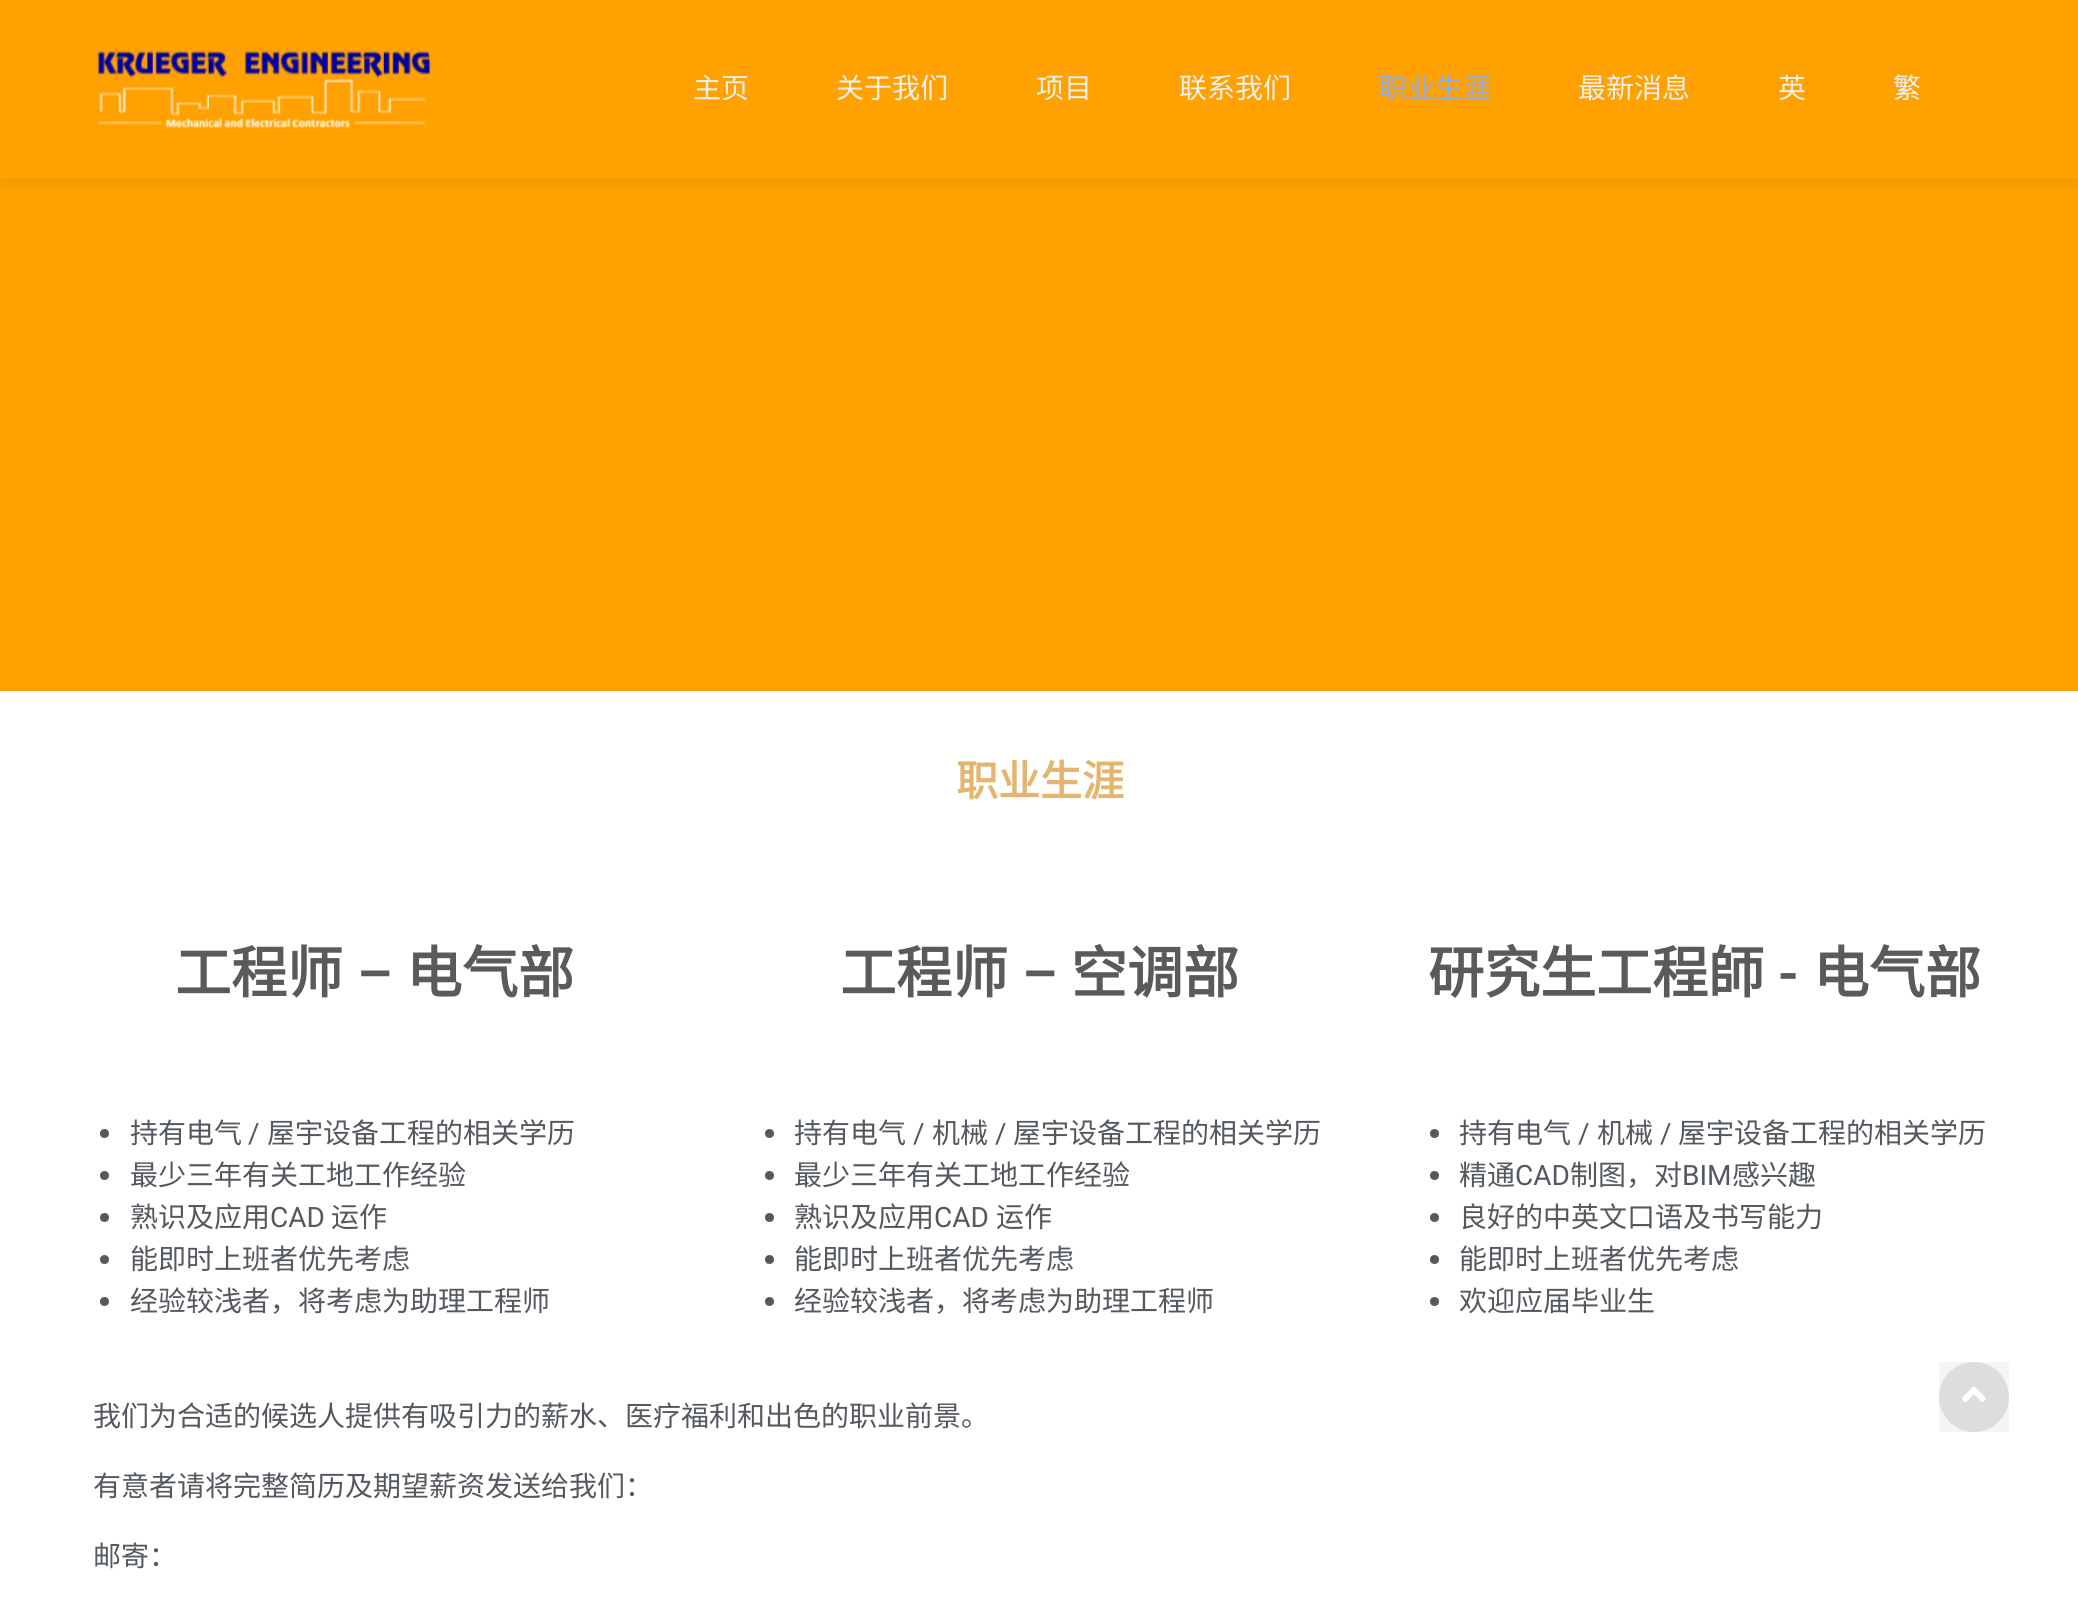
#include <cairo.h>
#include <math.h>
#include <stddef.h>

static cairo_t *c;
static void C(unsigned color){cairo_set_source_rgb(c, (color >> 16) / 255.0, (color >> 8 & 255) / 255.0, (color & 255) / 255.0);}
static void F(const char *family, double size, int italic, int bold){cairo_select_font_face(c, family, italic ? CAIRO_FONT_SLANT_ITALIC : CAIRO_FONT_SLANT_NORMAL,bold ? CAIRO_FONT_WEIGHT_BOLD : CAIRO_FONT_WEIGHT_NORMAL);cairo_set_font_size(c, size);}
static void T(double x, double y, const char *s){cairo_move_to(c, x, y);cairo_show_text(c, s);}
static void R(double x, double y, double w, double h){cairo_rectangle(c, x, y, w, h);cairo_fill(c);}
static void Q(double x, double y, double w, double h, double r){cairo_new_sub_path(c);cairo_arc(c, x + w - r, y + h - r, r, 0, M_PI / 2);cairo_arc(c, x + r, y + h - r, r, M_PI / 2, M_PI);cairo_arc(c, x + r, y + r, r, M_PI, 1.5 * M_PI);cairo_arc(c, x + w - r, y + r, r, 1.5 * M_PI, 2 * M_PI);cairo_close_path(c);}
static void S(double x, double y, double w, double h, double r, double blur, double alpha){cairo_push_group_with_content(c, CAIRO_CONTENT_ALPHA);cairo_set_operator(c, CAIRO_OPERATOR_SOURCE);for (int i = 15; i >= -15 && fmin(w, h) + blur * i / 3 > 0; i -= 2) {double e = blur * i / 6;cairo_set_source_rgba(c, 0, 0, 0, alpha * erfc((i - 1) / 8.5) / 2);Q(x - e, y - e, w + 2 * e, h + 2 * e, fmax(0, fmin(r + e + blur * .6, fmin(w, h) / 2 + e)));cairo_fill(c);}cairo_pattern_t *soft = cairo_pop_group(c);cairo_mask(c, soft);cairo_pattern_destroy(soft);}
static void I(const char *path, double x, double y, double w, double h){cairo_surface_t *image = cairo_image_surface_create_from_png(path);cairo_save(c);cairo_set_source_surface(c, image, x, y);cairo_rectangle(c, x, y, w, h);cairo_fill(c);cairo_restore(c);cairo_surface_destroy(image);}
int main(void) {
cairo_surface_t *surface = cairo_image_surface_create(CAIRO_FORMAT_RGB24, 2078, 1606);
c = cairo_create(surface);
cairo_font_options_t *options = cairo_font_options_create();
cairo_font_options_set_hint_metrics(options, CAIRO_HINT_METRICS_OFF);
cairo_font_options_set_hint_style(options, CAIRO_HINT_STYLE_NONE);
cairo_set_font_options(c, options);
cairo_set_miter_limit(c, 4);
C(0xffa100);
cairo_paint(c);
C(0x000000);
S(0,0,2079,179,0,10.5,.09);
C(0xffa100);
R(0,0,2078,179);
I("1.png",97,51,334,78);
F("Noto Sans CJK SC",28,0,0);
C(0xf0f0f0);
T(693,98,"主页");
T(836,98,"关于我们");
T(1036,98,"项目");
T(1179,98,"联系我们");
C(0x8aaef3);
T(1379,98,"职业生涯");
C(0xf0f0f0);
T(1578,98,"最新消息");
T(1778,98,"英");
T(1893,98,"繁");
C(0xffffff);
R(0,691,2078,915);
F("Noto Sans CJK SC",42,0,1);
C(0xe4b56e);
T(956,796,"职业生涯");
F("Noto Sans CJK SC",56,0,1);
C(0x5a5a5a);
T(175,993,"工程师");
F("Roboto SemiBold",56,0,0);
T(357,993,"–");
F("Noto Sans CJK SC",56,0,1);
T(406,993,"电气部");
C(0x54595f);
cairo_new_path(c);
cairo_arc(c,104.5,1133.5,4.5,0,2 * M_PI);
cairo_fill(c);
F("Noto Sans CJK SC",28,0,0);
T(130,1143,"持有电气");
F("Roboto",28,0,0);
T(248,1143,"/");
F("Noto Sans CJK SC",28,0,0);
T(267,1143,"屋宇设备工程的相关学历");
cairo_new_path(c);
cairo_arc(c,104.5,1175.5,4.5,0,2 * M_PI);
cairo_fill(c);
T(130,1185,"最少三年有关工地工作经验");
cairo_new_path(c);
cairo_arc(c,104.5,1217.5,4.5,0,2 * M_PI);
cairo_fill(c);
T(130,1227,"熟识及应用");
F("Roboto",28,0,0);
T(270,1227,"CAD");
F("Noto Sans CJK SC",28,0,0);
T(331,1227,"运作");
cairo_new_path(c);
cairo_arc(c,104.5,1259.5,4.5,0,2 * M_PI);
cairo_fill(c);
T(130,1269,"能即时上班者优先考虑");
cairo_new_path(c);
cairo_arc(c,104.5,1301.5,4.5,0,2 * M_PI);
cairo_fill(c);
T(130,1311,"经验较浅者，将考虑为助理工程师");
F("Noto Sans CJK SC",56,0,1);
C(0x5a5a5a);
T(840,993,"工程师");
F("Roboto SemiBold",56,0,0);
T(1022,993,"–");
F("Noto Sans CJK SC",56,0,1);
T(1071,993,"空调部");
C(0x54595f);
cairo_new_path(c);
cairo_arc(c,769.5,1133.5,4.5,0,2 * M_PI);
cairo_fill(c);
F("Noto Sans CJK SC",28,0,0);
T(794,1143,"持有电气");
F("Roboto",28,0,0);
T(913,1143,"/");
F("Noto Sans CJK SC",28,0,0);
T(932,1143,"机械");
F("Roboto",28,0,0);
T(995,1143,"/");
F("Noto Sans CJK SC",28,0,0);
T(1013,1143,"屋宇设备工程的相关学历");
cairo_new_path(c);
cairo_arc(c,769.5,1175.5,4.5,0,2 * M_PI);
cairo_fill(c);
T(794,1185,"最少三年有关工地工作经验");
cairo_new_path(c);
cairo_arc(c,769.5,1217.5,4.5,0,2 * M_PI);
cairo_fill(c);
T(794,1227,"熟识及应用");
F("Roboto",28,0,0);
T(934,1227,"CAD");
F("Noto Sans CJK SC",28,0,0);
T(996,1227,"运作");
cairo_new_path(c);
cairo_arc(c,769.5,1259.5,4.5,0,2 * M_PI);
cairo_fill(c);
T(794,1269,"能即时上班者优先考虑");
cairo_new_path(c);
cairo_arc(c,769.5,1301.5,4.5,0,2 * M_PI);
cairo_fill(c);
T(794,1311,"经验较浅者，将考虑为助理工程师");
F("Noto Sans CJK SC",56,0,1);
C(0x5a5a5a);
T(1428,993,"研究生工程師");
F("Roboto SemiBold",56,0,0);
T(1778,993,"-");
F("Noto Sans CJK SC",56,0,1);
T(1813,993,"电气部");
C(0x54595f);
cairo_new_path(c);
cairo_arc(c,1434.5,1133.5,4.5,0,2 * M_PI);
cairo_fill(c);
F("Noto Sans CJK SC",28,0,0);
T(1459,1143,"持有电气");
F("Roboto",28,0,0);
T(1578,1143,"/");
F("Noto Sans CJK SC",28,0,0);
T(1597,1143,"机械");
F("Roboto",28,0,0);
T(1660,1143,"/");
F("Noto Sans CJK SC",28,0,0);
T(1678,1143,"屋宇设备工程的相关学历");
cairo_new_path(c);
cairo_arc(c,1434.5,1175.5,4.5,0,2 * M_PI);
cairo_fill(c);
T(1459,1185,"精通");
F("Roboto",28,0,0);
T(1515,1185,"CAD");
F("Noto Sans CJK SC",28,0,0);
T(1570,1185,"制图，对");
F("Roboto",28,0,0);
T(1682,1185,"BIM");
F("Noto Sans CJK SC",28,0,0);
T(1732,1185,"感兴趣");
cairo_new_path(c);
cairo_arc(c,1434.5,1217.5,4.5,0,2 * M_PI);
cairo_fill(c);
T(1459,1227,"良好的中英文口语及书写能力");
cairo_new_path(c);
cairo_arc(c,1434.5,1259.5,4.5,0,2 * M_PI);
cairo_fill(c);
T(1459,1269,"能即时上班者优先考虑");
cairo_new_path(c);
cairo_arc(c,1434.5,1301.5,4.5,0,2 * M_PI);
cairo_fill(c);
T(1459,1311,"欢迎应届毕业生");
T(93,1426,"我们为合适的候选人提供有吸引力的薪水、医疗福利和出色的职业前景。");
T(93,1496,"有意者请将完整简历及期望薪资发送给我们：");
T(93,1566,"邮寄：");
C(0xe6e6e6);
cairo_new_path(c);
cairo_arc(c,1974,1397,35,0,2 * M_PI);
cairo_fill(c);
cairo_set_source_rgba(c,0,0,0,0.04);
R(1939,1362,70,70);
I("2.png",1961,1386,25,16);
cairo_surface_write_to_png(surface, "o.png");
cairo_font_options_destroy(options);
cairo_destroy(c);
cairo_surface_destroy(surface);
return 0;
}
